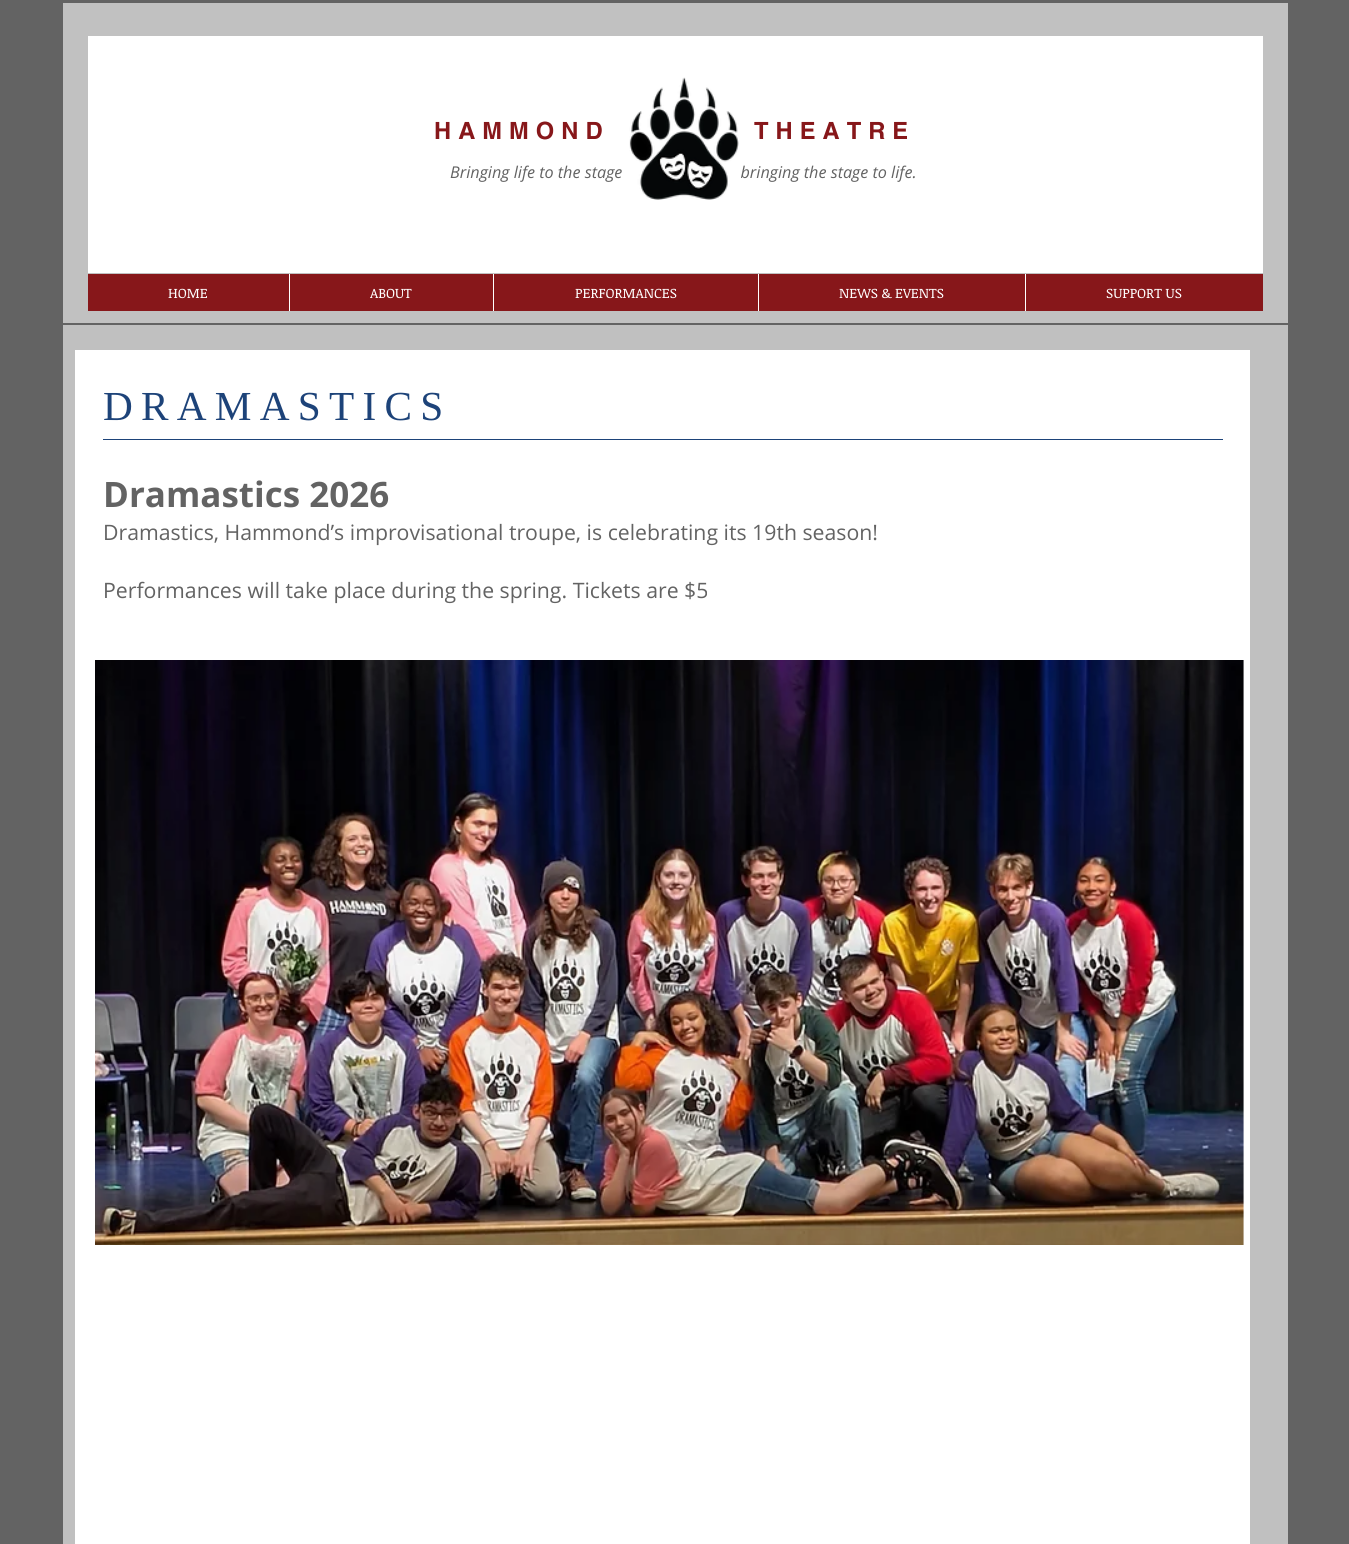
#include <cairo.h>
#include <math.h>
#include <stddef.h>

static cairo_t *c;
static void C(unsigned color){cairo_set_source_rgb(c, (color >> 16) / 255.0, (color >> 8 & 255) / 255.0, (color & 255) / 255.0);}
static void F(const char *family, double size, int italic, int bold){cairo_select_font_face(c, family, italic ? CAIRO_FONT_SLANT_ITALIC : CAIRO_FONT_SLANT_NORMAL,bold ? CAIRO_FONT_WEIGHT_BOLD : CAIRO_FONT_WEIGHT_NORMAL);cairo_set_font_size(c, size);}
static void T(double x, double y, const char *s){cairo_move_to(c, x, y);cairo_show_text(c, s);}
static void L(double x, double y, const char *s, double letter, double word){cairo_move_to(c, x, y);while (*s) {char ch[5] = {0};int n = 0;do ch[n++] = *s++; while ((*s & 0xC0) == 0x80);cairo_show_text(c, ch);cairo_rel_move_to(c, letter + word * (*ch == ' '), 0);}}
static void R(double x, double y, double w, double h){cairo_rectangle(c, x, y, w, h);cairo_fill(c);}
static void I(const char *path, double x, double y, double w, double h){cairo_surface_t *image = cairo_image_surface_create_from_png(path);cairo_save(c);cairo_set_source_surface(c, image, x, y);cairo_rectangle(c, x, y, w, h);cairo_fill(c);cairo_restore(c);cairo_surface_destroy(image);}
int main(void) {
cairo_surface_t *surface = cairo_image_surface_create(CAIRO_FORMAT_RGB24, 1349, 1544);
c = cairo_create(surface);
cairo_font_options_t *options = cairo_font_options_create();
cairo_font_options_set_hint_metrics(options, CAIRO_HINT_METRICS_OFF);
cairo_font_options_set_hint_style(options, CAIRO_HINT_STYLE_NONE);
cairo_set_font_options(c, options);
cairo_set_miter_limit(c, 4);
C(0x636363);
cairo_paint(c);
C(0xc1c1c1);
R(63,3,1225,320);
C(0xffffff);
R(88,36,1175,237);
I("1.png",629,77,110,123);
F("helvetica",23.75,0,1);
C(0x87171a);
L(434,139,"HAMMOND",7,0);
L(754,139,"THEATRE",7,0);
F("Open Sans",16.25,1,0);
C(0x636363);
T(450,178,"Bringing life to the stage                            bringing the stage to life.");
C(0x87171a);
R(88,274,1175,37);
F("Noticia Text",13.75,0,0);
C(0xffffff);
T(168,298,"HOME");
R(289,274,1,37);
T(370,298,"ABOUT");
R(493,274,1,37);
T(575,298,"PERFORMANCES");
R(758,274,1,37);
T(839,298,"NEWS & EVENTS");
R(1025,274,1,37);
T(1106,298,"SUPPORT US");
C(0xc0c0c0);
R(63,325,1225,1219);
C(0xffffff);
R(75,350,1175,1194);
F("Liberation Serif",41.25,0,0);
C(0x1d4379);
L(103,420,"DRAMASTICS",8.25,0);
R(103,439,1120,1);
F("Open Sans",35,0,1);
C(0x636363);
T(103,507,"Dramastics 2026");
F("Open Sans",21.25,0,0);
T(103,540,"Dramastics, Hammond’s improvisational troupe, is celebrating its 19th season!");
T(103,598,"Performances will take place during the spring. Tickets are $5");
I("2.png",95,660,1149,585);
cairo_surface_write_to_png(surface, "o.png");
cairo_font_options_destroy(options);
cairo_destroy(c);
cairo_surface_destroy(surface);
return 0;
}
